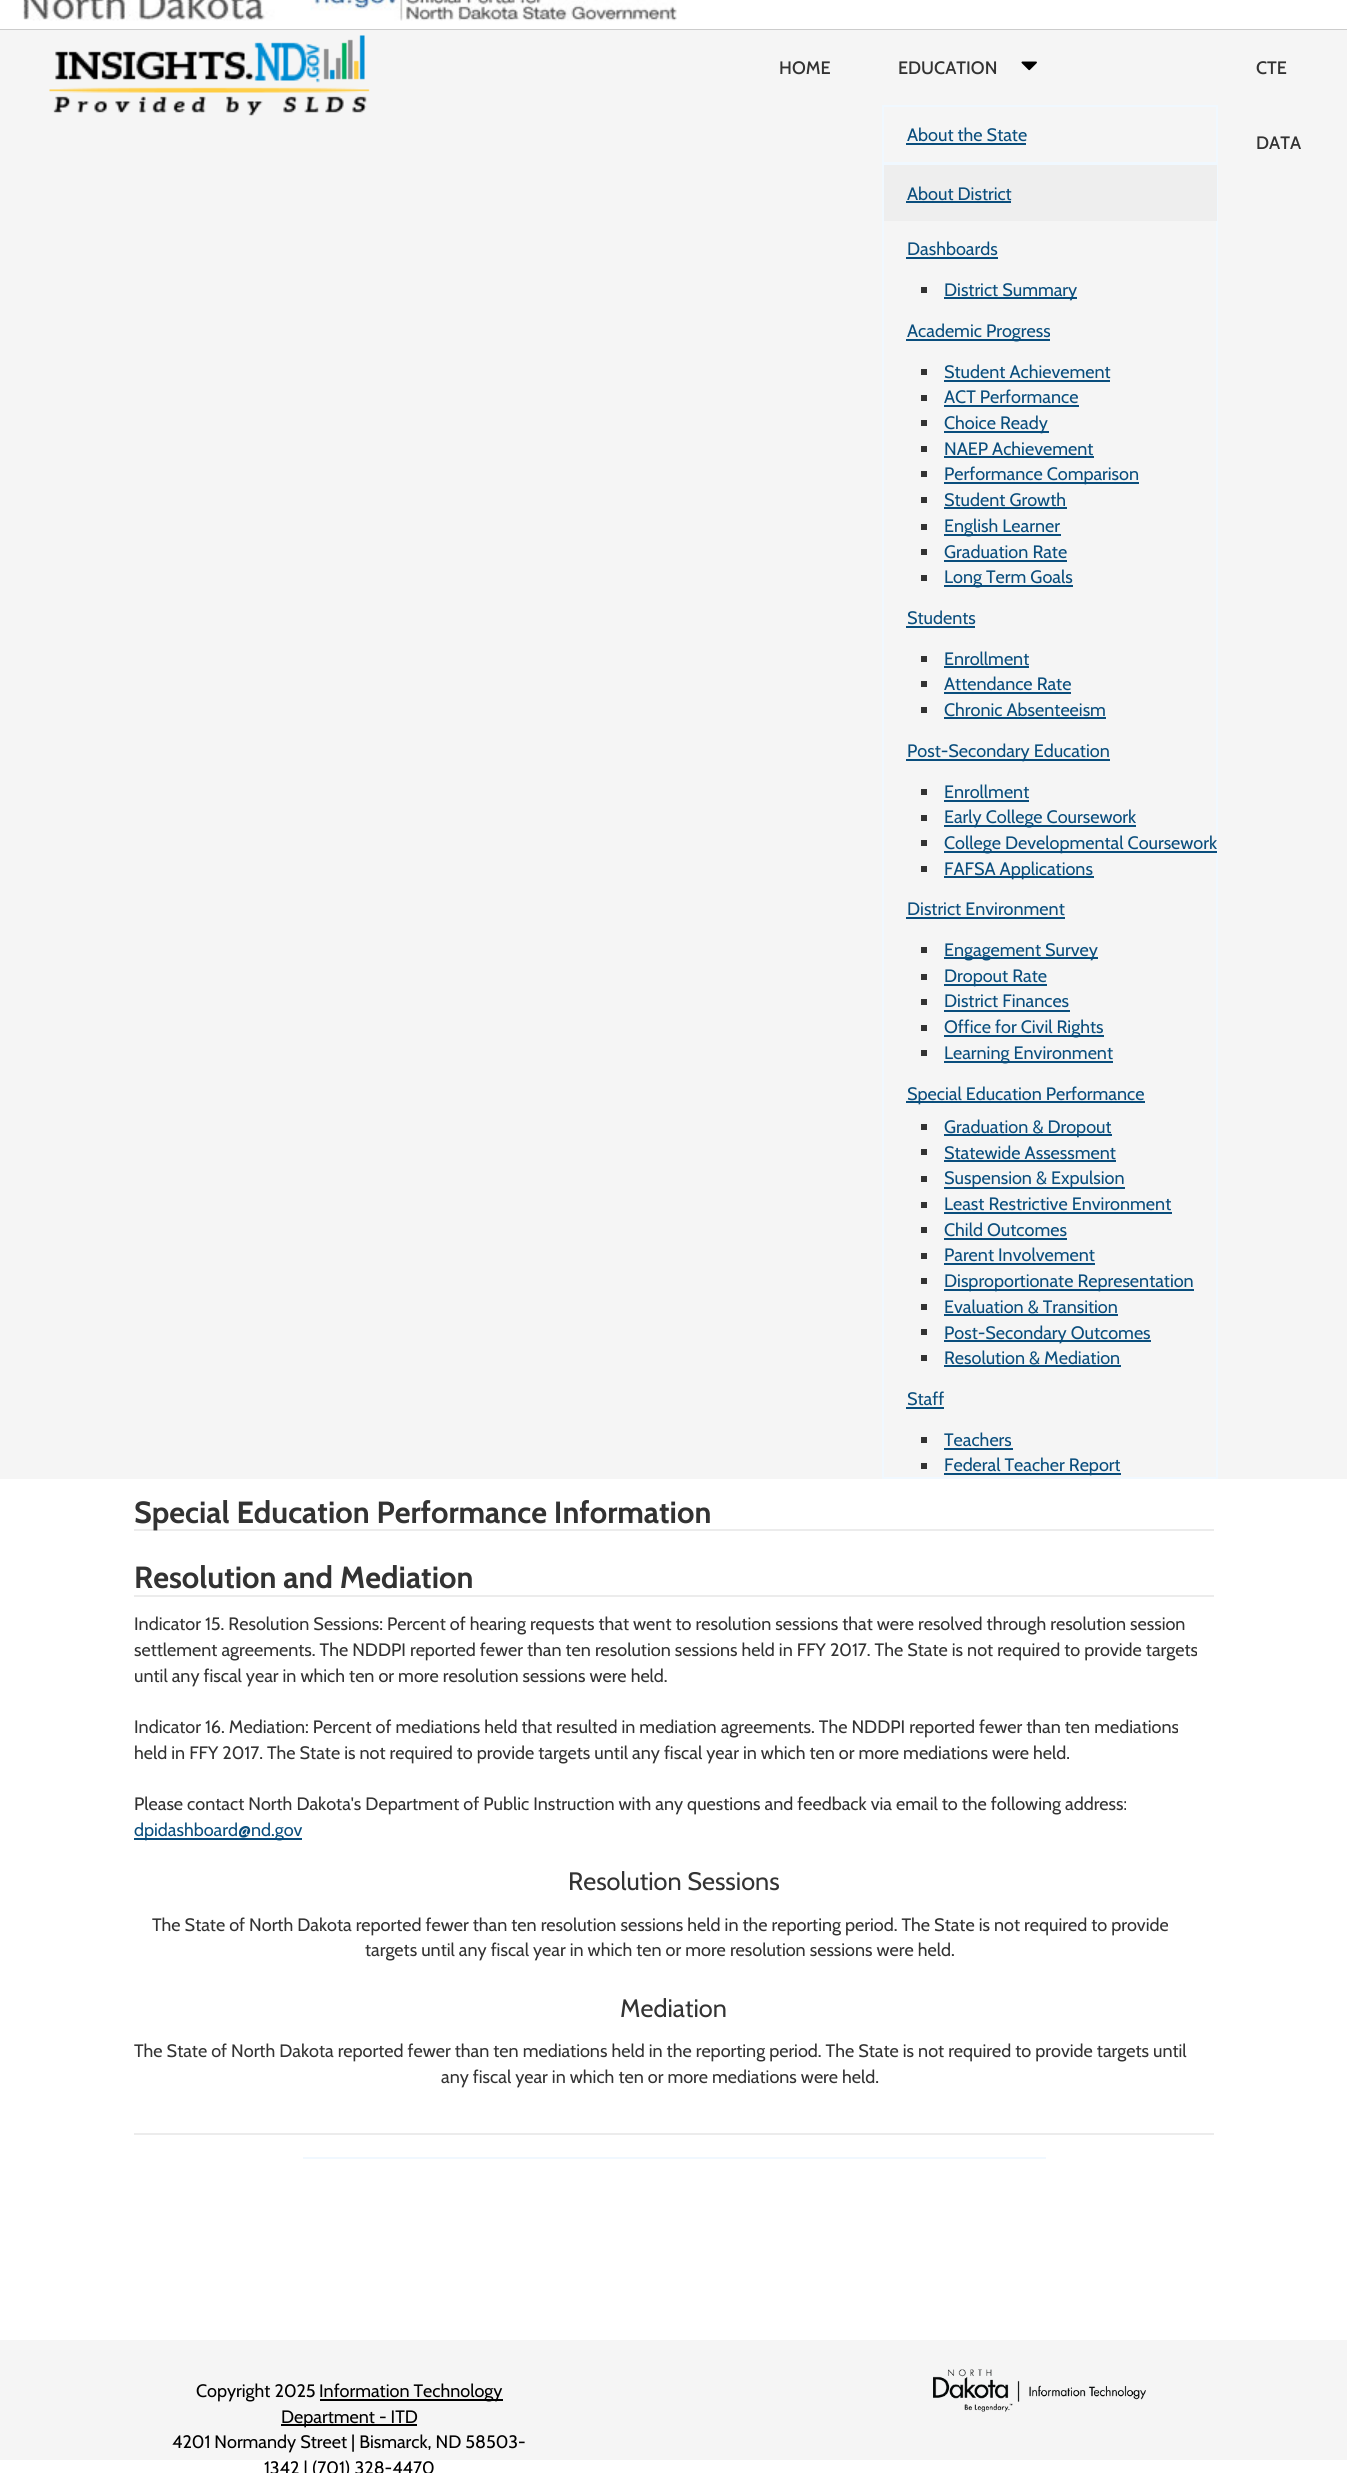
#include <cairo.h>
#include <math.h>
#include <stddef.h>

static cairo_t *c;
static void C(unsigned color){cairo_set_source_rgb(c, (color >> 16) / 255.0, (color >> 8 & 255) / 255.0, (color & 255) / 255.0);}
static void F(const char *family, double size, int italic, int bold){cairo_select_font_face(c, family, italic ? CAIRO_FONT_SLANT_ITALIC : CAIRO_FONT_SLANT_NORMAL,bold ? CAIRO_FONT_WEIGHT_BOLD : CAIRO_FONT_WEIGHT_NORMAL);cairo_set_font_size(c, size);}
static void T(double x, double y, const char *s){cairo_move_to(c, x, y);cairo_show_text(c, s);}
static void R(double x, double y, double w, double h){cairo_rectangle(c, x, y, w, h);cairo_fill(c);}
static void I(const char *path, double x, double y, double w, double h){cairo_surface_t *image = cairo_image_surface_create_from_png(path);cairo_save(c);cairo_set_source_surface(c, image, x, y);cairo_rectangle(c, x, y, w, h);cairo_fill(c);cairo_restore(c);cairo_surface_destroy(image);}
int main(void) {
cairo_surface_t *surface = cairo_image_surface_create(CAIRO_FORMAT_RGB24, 1347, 2473);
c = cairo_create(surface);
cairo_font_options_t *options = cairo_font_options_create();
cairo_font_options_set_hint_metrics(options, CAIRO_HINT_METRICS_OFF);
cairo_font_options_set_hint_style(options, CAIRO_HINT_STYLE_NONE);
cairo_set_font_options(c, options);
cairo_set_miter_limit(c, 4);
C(0xffffff);
cairo_paint(c);
C(0xcccccc);
R(0,29,1347,1);
I("1.png",22,0,655,21);
C(0xf5f5f5);
R(0,30,1347,1449);
I("2.png",49,35,321,81);
F("Cabin Medium",18,0,0);
C(0x333333);
T(779,74,"HOME");
T(898,74,"EDUCATION");
I("3.png",1021,61,16,10);
cairo_rectangle(c,883,106,334,57);
C(0xf0f8ff);
cairo_stroke(c);
F("Cabin",18,0,0);
C(0x0a4e7d);
T(907,141,"About the State");
R(906,143,120,2);
cairo_rectangle(c,883,165,334,1313);
C(0xf0f8ff);
cairo_stroke(c);
C(0xeeeeee);
R(884,165,333,56);
C(0x0a4e7d);
T(907,200,"About District");
R(906,201,105,2);
T(907,255,"Dashboards");
R(906,257,92,2);
C(0x333333);
R(921,287,6,6);
C(0x0a4e7d);
R(944,297,133,2);
T(944,296,"District Summary");
R(906,339,144,2);
T(907,337,"Academic Progress");
C(0x333333);
R(921,369,6,6);
C(0x0a4e7d);
T(944,378,"Student Achievement");
R(944,380,166,2);
C(0x333333);
R(921,395,6,6);
C(0x0a4e7d);
T(944,403,"ACT Performance");
R(944,405,135,2);
C(0x333333);
R(921,420,6,6);
C(0x0a4e7d);
R(944,431,105,2);
T(944,429,"Choice Ready");
C(0x333333);
R(921,446,6,6);
C(0x0a4e7d);
T(944,455,"NAEP Achievement");
R(944,456,150,2);
C(0x333333);
R(921,471,6,6);
C(0x0a4e7d);
R(944,482,195,2);
T(944,480,"Performance Comparison");
C(0x333333);
R(921,497,6,6);
C(0x0a4e7d);
T(944,506,"Student Growth");
R(944,507,123,2);
C(0x333333);
R(921,524,6,6);
C(0x0a4e7d);
R(944,534,117,2);
T(944,532,"English Learner");
C(0x333333);
R(921,549,6,6);
C(0x0a4e7d);
T(944,558,"Graduation Rate");
R(944,560,123,2);
C(0x333333);
R(921,575,6,6);
C(0x0a4e7d);
R(944,585,129,2);
T(944,583,"Long Term Goals");
T(907,624,"Students");
R(906,626,69,2);
C(0x333333);
R(921,656,6,6);
C(0x0a4e7d);
T(944,665,"Enrollment");
R(944,666,85,2);
C(0x333333);
R(921,681,6,6);
C(0x0a4e7d);
T(944,690,"Attendance Rate");
R(944,692,127,2);
C(0x333333);
R(921,707,6,6);
C(0x0a4e7d);
T(944,716,"Chronic Absenteeism");
R(944,717,162,2);
R(906,759,204,2);
T(907,757,"Post-Secondary Education");
C(0x333333);
R(921,789,6,6);
C(0x0a4e7d);
T(944,798,"Enrollment");
R(944,800,85,2);
C(0x333333);
R(921,815,6,6);
C(0x0a4e7d);
R(944,825,192,2);
T(944,823,"Early College Coursework");
C(0x333333);
R(921,840,6,6);
C(0x0a4e7d);
R(944,851,273,2);
T(944,849,"College Developmental Coursework");
C(0x333333);
R(921,866,6,6);
C(0x0a4e7d);
R(944,876,150,2);
T(944,875,"FAFSA Applications");
T(907,915,"District Environment");
R(906,917,159,2);
C(0x333333);
R(921,947,6,6);
C(0x0a4e7d);
R(944,957,154,2);
T(944,956,"Engagement Survey");
C(0x333333);
R(921,974,6,6);
C(0x0a4e7d);
R(944,984,103,2);
T(944,982,"Dropout Rate");
C(0x333333);
R(921,999,6,6);
C(0x0a4e7d);
T(944,1007,"District Finances");
R(944,1010,126,2);
C(0x333333);
R(921,1025,6,6);
C(0x0a4e7d);
R(944,1035,160,2);
T(944,1033,"Office for Civil Rights");
C(0x333333);
R(921,1050,6,6);
C(0x0a4e7d);
R(944,1061,169,2);
T(944,1059,"Learning Environment");
R(906,1101,239,2);
T(907,1100,"Special Education Performance");
C(0x333333);
R(921,1124,6,6);
C(0x0a4e7d);
R(944,1134,168,2);
T(944,1133,"Graduation & Dropout");
C(0x333333);
R(921,1149,6,6);
C(0x0a4e7d);
T(944,1159,"Statewide Assessment");
R(944,1160,172,2);
C(0x333333);
R(921,1176,6,6);
C(0x0a4e7d);
R(944,1187,181,2);
T(944,1184,"Suspension & Expulsion");
C(0x333333);
R(921,1202,6,6);
C(0x0a4e7d);
T(944,1210,"Least Restrictive Environment");
R(944,1212,228,2);
C(0x333333);
R(921,1227,6,6);
C(0x0a4e7d);
T(944,1236,"Child Outcomes");
R(944,1238,123,2);
C(0x333333);
R(921,1253,6,6);
C(0x0a4e7d);
T(944,1261,"Parent Involvement");
R(944,1263,151,2);
C(0x333333);
R(921,1278,6,6);
C(0x0a4e7d);
R(944,1289,250,2);
T(944,1287,"Disproportionate Representation");
C(0x333333);
R(921,1304,6,6);
C(0x0a4e7d);
T(944,1313,"Evaluation & Transition");
R(944,1314,174,2);
C(0x333333);
R(921,1329,6,6);
C(0x0a4e7d);
R(944,1340,207,2);
T(944,1339,"Post-Secondary Outcomes");
C(0x333333);
R(921,1355,6,6);
C(0x0a4e7d);
T(944,1364,"Resolution & Mediation");
R(944,1365,177,2);
T(907,1405,"Staff");
R(906,1407,38,2);
C(0x333333);
R(921,1437,6,6);
C(0x0a4e7d);
T(944,1446,"Teachers");
R(944,1448,69,2);
C(0x333333);
R(921,1463,6,6);
C(0x0a4e7d);
R(944,1473,177,2);
T(944,1471,"Federal Teacher Report");
F("Cabin Medium",18,0,0);
C(0x333333);
T(1256,74,"CTE");
T(1256,149,"DATA");
C(0xececec);
R(134,1529,1080,2);
F("Cabin",30.6,0,1);
C(0x333333);
T(134,1523,"Special Education Performance Information");
C(0xececec);
R(134,1595,1080,2);
C(0x333333);
T(134,1588,"Resolution and Mediation");
F("Cabin",18,0,0);
T(134,1630,"Indicator 15. Resolution Sessions: Percent of hearing requests that went to resolution sessions that were resolved through resolution session");
T(134,1656,"settlement agreements. The NDDPI reported fewer than ten resolution sessions held in FFY 2017. The State is not required to provide targets");
T(134,1682,"until any fiscal year in which ten or more resolution sessions were held.");
T(134,1733,"Indicator 16. Mediation: Percent of mediations held that resulted in mediation agreements. The NDDPI reported fewer than ten mediations");
T(134,1759,"held in FFY 2017. The State is not required to provide targets until any fiscal year in which ten or more mediations were held.");
T(134,1810,"Please contact North Dakota's Department of Public Instruction with any questions and feedback via email to the following address:");
C(0x0a4e7d);
R(134,1838,168,2);
T(134,1836,"dpidashboard@nd.gov");
F("Cabin",25.25,0,0);
C(0x333333);
T(568,1890,"Resolution Sessions");
F("Cabin",18,0,0);
T(152,1931,"The State of North Dakota reported fewer than ten resolution sessions held in the reporting period. The State is not required to provide");
T(365,1956,"targets until any fiscal year in which ten or more resolution sessions were held.");
F("Cabin",25.25,0,0);
T(620,2017,"Mediation");
F("Cabin",18,0,0);
T(134,2057,"The State of North Dakota reported fewer than ten mediations held in the reporting period. The State is not required to provide targets until");
T(441,2083,"any fiscal year in which ten or more mediations were held.");
C(0xececec);
R(134,2133,1080,2);
C(0xf0f8ff);
R(303,2157,743,2);
C(0xf5f5f5);
R(0,2340,1347,120);
C(0x000000);
T(196,2397,"Copyright 2025");
R(320,2399,183,2);
T(319,2397,"Information Technology");
R(281,2424,136,2);
T(281,2423,"Department - ITD");
T(172,2448,"4201 Normandy Street | Bismarck, ND 58503-");
T(264,2474,"1342 | (701) 328-4470");
I("4.png",933,2369,213,43);
cairo_surface_write_to_png(surface, "o.png");
cairo_font_options_destroy(options);
cairo_destroy(c);
cairo_surface_destroy(surface);
return 0;
}
